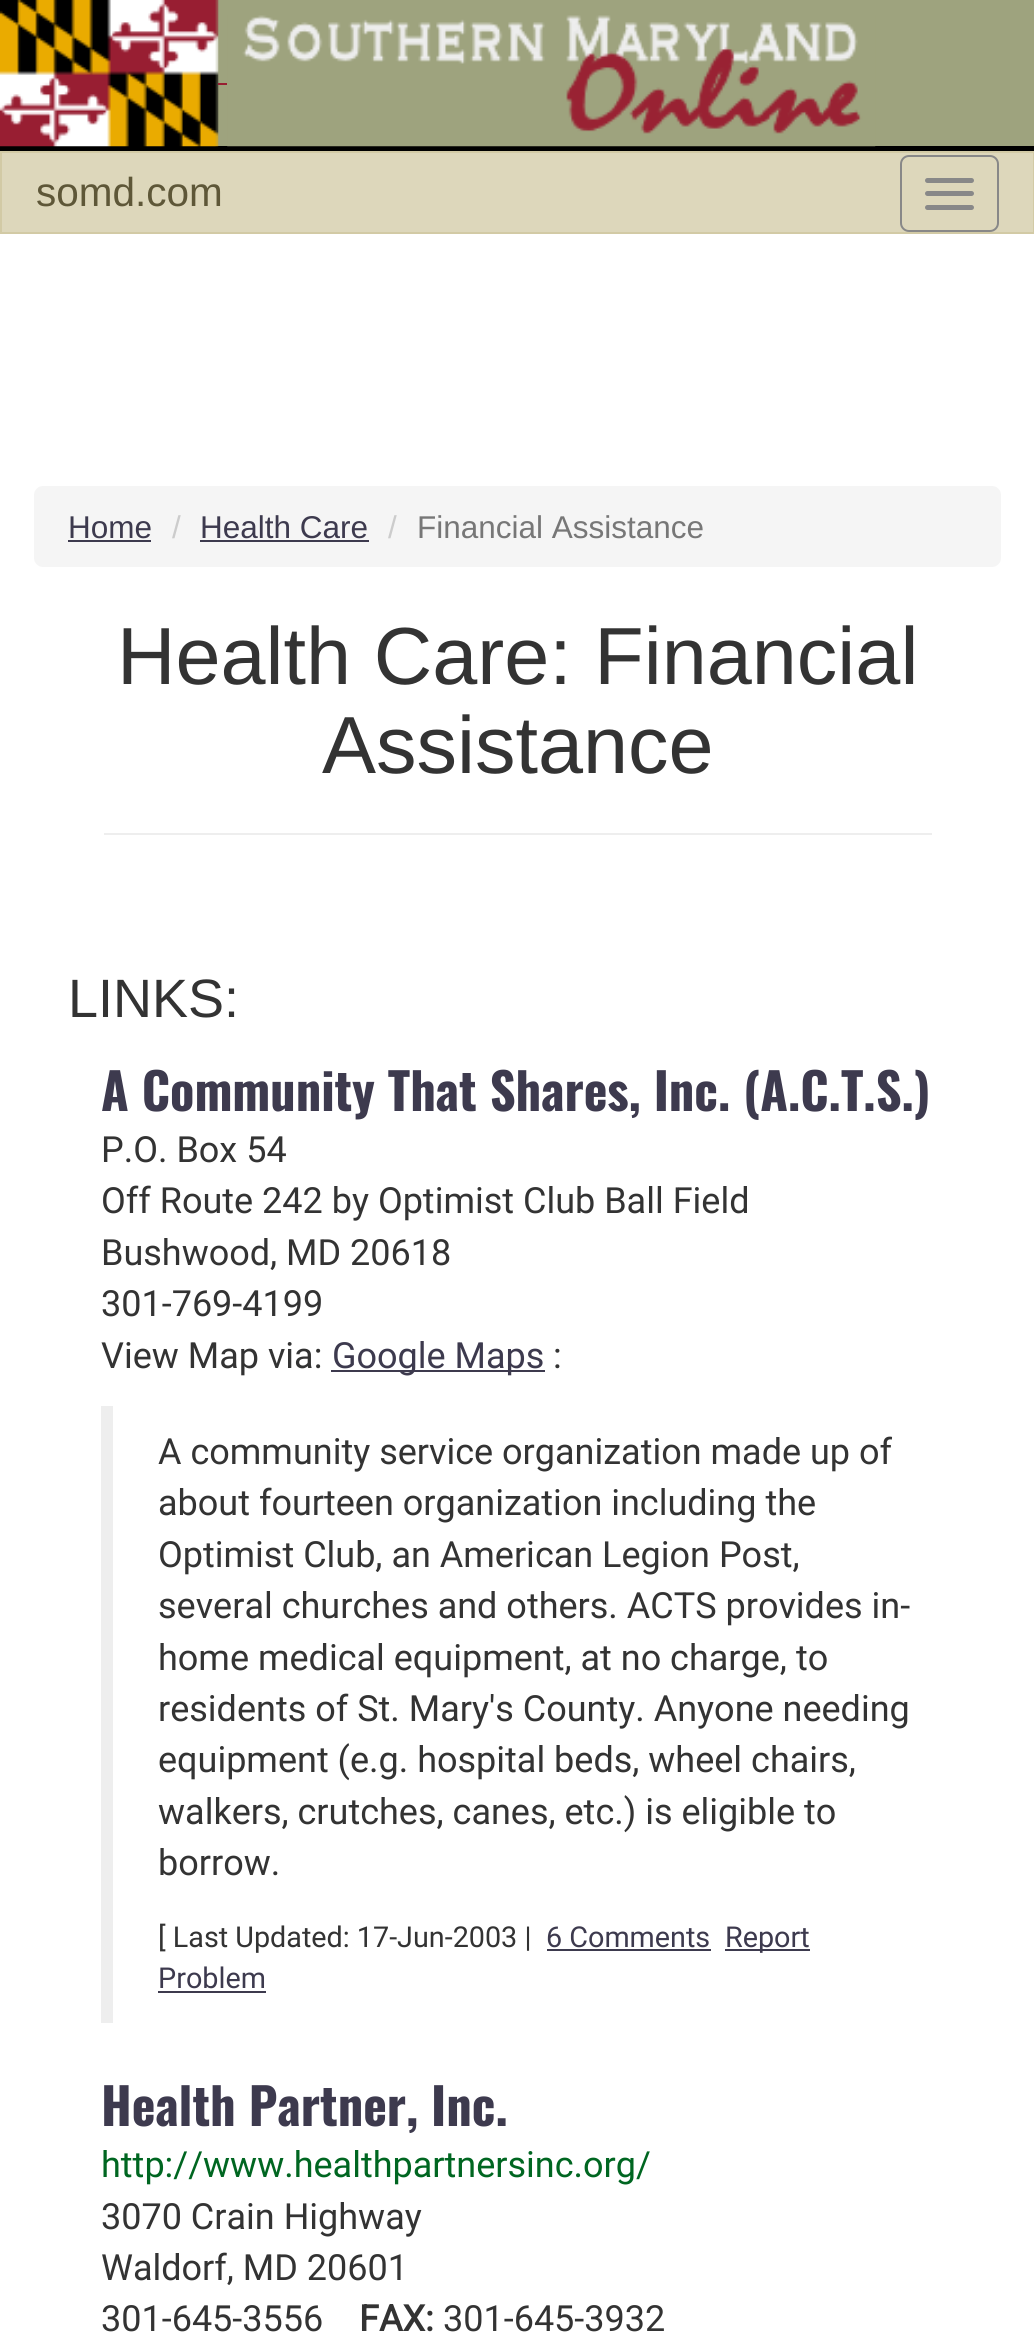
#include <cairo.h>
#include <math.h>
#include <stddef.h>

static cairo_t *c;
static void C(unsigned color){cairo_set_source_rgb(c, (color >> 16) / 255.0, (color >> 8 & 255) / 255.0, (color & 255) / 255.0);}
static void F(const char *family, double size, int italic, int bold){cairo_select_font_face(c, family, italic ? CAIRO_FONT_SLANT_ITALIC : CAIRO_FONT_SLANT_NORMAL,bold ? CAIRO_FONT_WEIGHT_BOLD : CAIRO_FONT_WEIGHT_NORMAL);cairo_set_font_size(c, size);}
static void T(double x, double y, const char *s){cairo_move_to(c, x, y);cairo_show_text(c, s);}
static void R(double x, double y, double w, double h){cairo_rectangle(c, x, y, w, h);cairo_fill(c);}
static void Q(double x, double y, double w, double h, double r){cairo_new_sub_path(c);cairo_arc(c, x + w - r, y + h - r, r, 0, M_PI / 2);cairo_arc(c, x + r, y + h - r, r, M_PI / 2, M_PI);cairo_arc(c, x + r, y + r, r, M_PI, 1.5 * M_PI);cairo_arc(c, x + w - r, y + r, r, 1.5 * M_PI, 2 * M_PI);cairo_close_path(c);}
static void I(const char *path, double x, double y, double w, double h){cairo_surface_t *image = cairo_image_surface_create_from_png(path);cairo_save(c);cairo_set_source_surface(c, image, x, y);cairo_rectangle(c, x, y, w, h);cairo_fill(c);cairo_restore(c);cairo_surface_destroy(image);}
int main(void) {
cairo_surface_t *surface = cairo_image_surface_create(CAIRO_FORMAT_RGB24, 1034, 2341);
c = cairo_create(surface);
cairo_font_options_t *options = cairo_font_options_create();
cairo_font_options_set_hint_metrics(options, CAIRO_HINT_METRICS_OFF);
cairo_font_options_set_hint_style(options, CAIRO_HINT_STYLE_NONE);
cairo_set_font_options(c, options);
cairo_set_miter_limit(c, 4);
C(0xffffff);
cairo_paint(c);
C(0x9ea37e);
R(215,0,819,146);
C(0x000000);
R(0,146,1034,5);
I("1.png",0,0,219,147);
C(0x981e32);
R(218,83,9,2);
I("2.png",227,15,649,132);
C(0xddd7bb);
cairo_rectangle(c,1,152,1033,81);
cairo_fill_preserve(c);
C(0xd2caa5);
cairo_stroke(c);
F("Liberation Sans",40.5,0,0);
C(0x5e5738);
T(36,206,"somd.com");
Q(901,156,97,75,8);
C(0x888888);
cairo_stroke(c);
Q(925,178,49,5,2.5);
cairo_fill(c);
Q(925,191,49,5,2.5);
cairo_fill(c);
Q(925,205,49,5,2.5);
cairo_fill(c);
C(0xf5f5f5);
Q(34,486,967,81,9);
cairo_fill(c);
F("Liberation Sans",31.5,0,0);
C(0x3d3a4e);
T(68,538,"Home");
R(68,540,83,2);
C(0xcccccc);
T(172,538,"/");
C(0x3d3a4e);
T(200,538,"Health Care");
R(200,540,169,2);
C(0xcccccc);
T(388,538,"/");
C(0x777777);
T(417,538,"Financial Assistance");
C(0xeeeeee);
R(104,833,828,2);
F("Liberation Sans",81,0,0);
C(0x333333);
T(117,684,"Health Care: Financial");
T(322,773,"Assistance");
F("Liberation Sans",54,0,0);
T(68,1017,"LINKS:");
F("Oswald",50.4,0,1);
C(0x3d3a4e);
T(101,1111,"A Community That Shares, Inc. (A.C.T.S.)");
F("Roboto",36,0,0);
C(0x333333);
T(101,1162,"P.O. Box 54");
T(101,1213,"Off Route 242 by Optimist Club Ball Field");
T(101,1265,"Bushwood, MD 20618");
T(101,1316,"301-769-4199");
T(101,1368,"View Map via:");
C(0x3d3a4e);
R(331,1370,214,2);
T(332,1368,"Google Maps");
C(0x333333);
T(553,1368,":");
C(0xeeeeee);
R(101,1406,12,617);
C(0x333333);
T(158,1464,"A community service organization made up of");
T(158,1515,"about fourteen organization including the");
T(158,1567,"Optimist Club, an American Legion Post,");
T(158,1618,"several churches and others. ACTS provides in-");
T(158,1670,"home medical equipment, at no charge, to");
T(158,1721,"residents of St. Mary's County. Anyone needing");
T(158,1772,"equipment (e.g. hospital beds, wheel chairs,");
T(158,1824,"walkers, crutches, canes, etc.) is eligible to");
T(158,1875,"borrow.");
F("Roboto",28.75,0,0);
T(158,1947,"[ Last Updated: 17-Jun-2003 |");
C(0x3d3a4e);
T(546,1947,"6 Comments");
R(547,1949,164,2);
R(725,1949,85,2);
T(725,1947,"Report");
T(158,1988,"Problem");
R(158,1991,108,2);
F("Oswald",50.4,0,1);
T(101,2126,"Health Partner, Inc.");
F("Roboto",36,0,0);
C(0x006621);
T(101,2177,"http://www.healthpartnersinc.org/");
C(0x333333);
T(101,2229,"3070 Crain Highway");
T(101,2280,"Waldorf, MD 20601");
T(101,2331,"301-645-3556");
F("Roboto",36,0,1);
T(359,2331,"FAX:");
F("Roboto",36,0,0);
T(443,2331,"301-645-3932");
cairo_surface_write_to_png(surface, "o.png");
cairo_font_options_destroy(options);
cairo_destroy(c);
cairo_surface_destroy(surface);
return 0;
}
